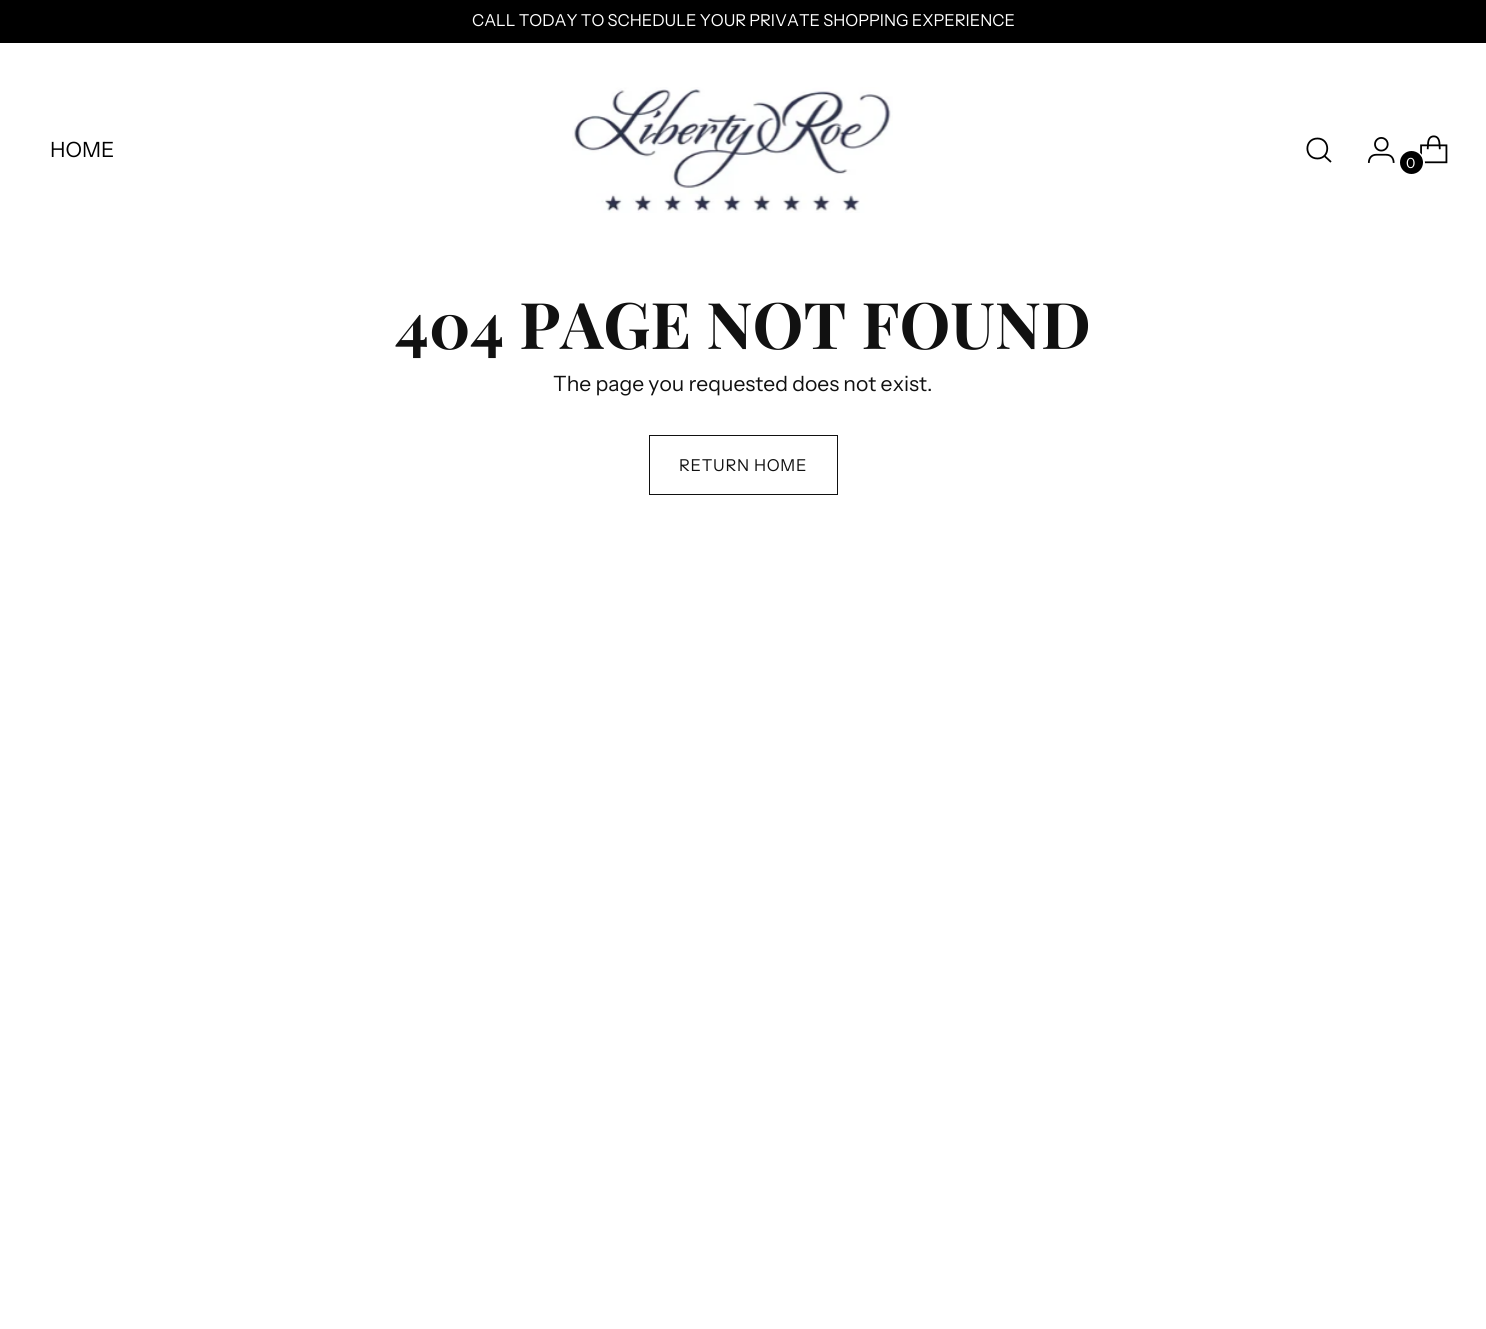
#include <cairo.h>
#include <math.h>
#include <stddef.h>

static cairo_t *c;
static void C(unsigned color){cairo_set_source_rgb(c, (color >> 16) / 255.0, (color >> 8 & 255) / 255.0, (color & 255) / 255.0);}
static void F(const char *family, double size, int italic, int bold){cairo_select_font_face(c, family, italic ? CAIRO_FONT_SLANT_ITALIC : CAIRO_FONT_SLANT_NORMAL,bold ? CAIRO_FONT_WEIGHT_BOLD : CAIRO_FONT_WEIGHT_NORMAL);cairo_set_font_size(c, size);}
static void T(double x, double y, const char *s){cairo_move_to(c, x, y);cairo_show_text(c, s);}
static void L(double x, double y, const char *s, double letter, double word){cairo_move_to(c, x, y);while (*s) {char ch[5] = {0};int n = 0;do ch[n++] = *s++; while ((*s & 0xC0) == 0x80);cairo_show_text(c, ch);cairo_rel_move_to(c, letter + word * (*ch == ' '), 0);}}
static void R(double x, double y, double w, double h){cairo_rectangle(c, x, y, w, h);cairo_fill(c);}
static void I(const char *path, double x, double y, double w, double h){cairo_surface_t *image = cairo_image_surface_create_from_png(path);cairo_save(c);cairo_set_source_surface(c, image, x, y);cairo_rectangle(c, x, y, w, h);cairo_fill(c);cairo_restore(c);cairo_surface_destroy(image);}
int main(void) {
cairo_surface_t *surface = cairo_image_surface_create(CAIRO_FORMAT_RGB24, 1486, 1329);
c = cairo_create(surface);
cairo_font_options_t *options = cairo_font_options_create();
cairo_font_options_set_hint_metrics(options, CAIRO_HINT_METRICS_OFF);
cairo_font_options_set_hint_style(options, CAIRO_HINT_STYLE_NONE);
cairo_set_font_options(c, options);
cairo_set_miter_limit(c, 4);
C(0xffffff);
cairo_paint(c);
C(0x000000);
R(0,0,1486,43);
F("Instrument Sans",16.4,0,0);
C(0xffffff);
T(472,26,"CALL TODAY TO SCHEDULE YOUR PRIVATE SHOPPING EXPERIENCE");
F("Instrument Sans",21,0,0);
C(0x000000);
T(50,157,"HOME");
I("1.png",572,87,321,126);
cairo_new_path(c);
cairo_move_to(c,1317.5,158.5);
cairo_curve_to(c,1330.5,158.5,1330.5,138.5,1317.5,138.5);
cairo_curve_to(c,1304,138.5,1304,158.5,1317.5,158.5);
cairo_close_path(c);
cairo_set_line_width(c,1.8);
cairo_set_line_cap(c,CAIRO_LINE_CAP_ROUND);
cairo_stroke(c);
cairo_new_path(c);
cairo_move_to(c,1324.5,156);
cairo_line_to(c,1331,162);
cairo_set_line_cap(c,CAIRO_LINE_CAP_BUTT);
cairo_stroke(c);
I("2.png",1367,137,28,26);
I("3.png",1420,135,28,29);
cairo_arc(c,1412,163,12,0,2 * M_PI);
C(0xffffff);
cairo_set_line_width(c,2);
cairo_stroke(c);
C(0x000000);
cairo_arc(c,1411.5,162.5,11.5,0,2 * M_PI);
cairo_fill(c);
F("Instrument Sans",14,0,0);
C(0xffffff);
T(1406,168,"0");
F("Playfair Display",64.25,0,1);
C(0x111111);
T(395,349,"404 PAGE NOT FOUND");
F("Instrument Sans",21.1,0,0);
T(553,391,"The page you requested does not exist.");
cairo_rectangle(c,649.5,435.5,188,59);
cairo_set_line_width(c,1);
cairo_stroke(c);
F("Instrument Sans",16.4,0,0);
L(679,471,"RETURN HOME",.75,0);
cairo_surface_write_to_png(surface, "o.png");
cairo_font_options_destroy(options);
cairo_destroy(c);
cairo_surface_destroy(surface);
return 0;
}
